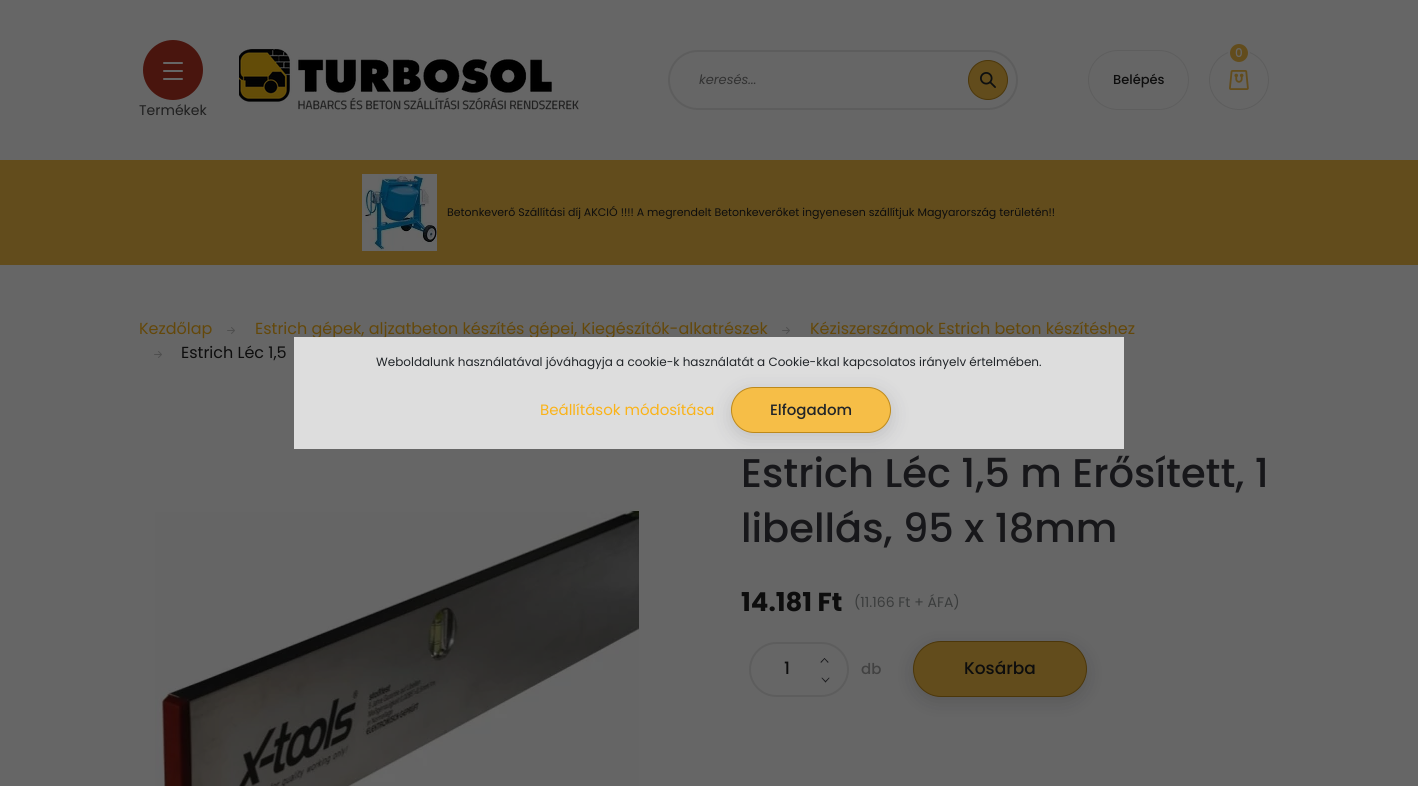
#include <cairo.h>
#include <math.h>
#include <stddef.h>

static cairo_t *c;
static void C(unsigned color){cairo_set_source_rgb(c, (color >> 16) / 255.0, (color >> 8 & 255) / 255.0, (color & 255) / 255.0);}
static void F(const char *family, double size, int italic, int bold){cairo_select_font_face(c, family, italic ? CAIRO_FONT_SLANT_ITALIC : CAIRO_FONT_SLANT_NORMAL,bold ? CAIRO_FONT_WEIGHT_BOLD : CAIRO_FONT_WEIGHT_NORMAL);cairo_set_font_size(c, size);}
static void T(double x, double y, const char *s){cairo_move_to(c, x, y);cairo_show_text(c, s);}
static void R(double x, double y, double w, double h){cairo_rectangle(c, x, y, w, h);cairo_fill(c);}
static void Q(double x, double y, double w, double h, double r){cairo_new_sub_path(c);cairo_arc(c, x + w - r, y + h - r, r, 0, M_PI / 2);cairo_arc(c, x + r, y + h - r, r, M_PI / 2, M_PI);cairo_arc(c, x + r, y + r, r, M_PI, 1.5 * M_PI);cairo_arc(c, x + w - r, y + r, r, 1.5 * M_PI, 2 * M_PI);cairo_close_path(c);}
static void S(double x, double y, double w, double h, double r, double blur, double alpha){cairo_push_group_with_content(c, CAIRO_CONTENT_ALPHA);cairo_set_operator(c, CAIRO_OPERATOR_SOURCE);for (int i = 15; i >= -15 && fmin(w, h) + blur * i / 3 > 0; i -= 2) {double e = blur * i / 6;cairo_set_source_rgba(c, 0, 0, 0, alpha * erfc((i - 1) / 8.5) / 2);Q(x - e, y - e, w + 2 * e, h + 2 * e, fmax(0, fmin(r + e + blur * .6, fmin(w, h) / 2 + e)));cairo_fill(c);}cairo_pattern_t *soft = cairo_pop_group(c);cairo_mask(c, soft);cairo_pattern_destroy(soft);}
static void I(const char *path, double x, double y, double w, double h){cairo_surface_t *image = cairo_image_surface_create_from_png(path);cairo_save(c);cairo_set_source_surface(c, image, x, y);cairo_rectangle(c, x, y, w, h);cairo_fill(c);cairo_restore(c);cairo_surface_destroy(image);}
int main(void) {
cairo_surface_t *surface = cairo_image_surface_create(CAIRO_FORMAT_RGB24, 1418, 786);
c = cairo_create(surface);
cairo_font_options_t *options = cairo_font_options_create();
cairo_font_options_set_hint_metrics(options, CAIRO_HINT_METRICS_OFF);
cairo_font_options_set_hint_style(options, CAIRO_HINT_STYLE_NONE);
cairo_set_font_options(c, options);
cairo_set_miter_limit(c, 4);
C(0x666666);
cairo_paint(c);
I("1.png",239,49,340,61);
Q(669,51,348,58,29);
C(0x5d5d5d);
cairo_stroke(c);
F("Poppins",13,1,0);
C(0x323232);
T(699,84,"keresés...");
C(0x624c1c);
cairo_new_path(c);
cairo_arc(c,988,80,19.5,0,2 * M_PI);
cairo_fill_preserve(c);
C(0x4c370a);
cairo_set_line_width(c,1);
cairo_stroke(c);
I("2.png",980,72,16,16);
Q(1088.5,50.5,100,59,29.5);
C(0x5e5e5e);
cairo_stroke(c);
F("Poppins Medium",13,0,0);
C(0x0d0d0d);
T(1113,84,"Belépés");
cairo_new_path(c);
cairo_arc(c,1239,80,29.5,0,2 * M_PI);
C(0x5d5d5d);
cairo_stroke(c);
C(0x624c1c);
cairo_arc(c,1239,53,10,0,2 * M_PI);
cairo_fill_preserve(c);
C(0x666666);
cairo_set_line_width(c,2);
cairo_stroke(c);
F("Poppins Medium",12,0,0);
T(1235,57,"0");
I("3.png",1229,70,20,20);
C(0x49150e);
cairo_arc(c,173,70,30,0,2 * M_PI);
cairo_fill(c);
C(0x666666);
Q(163,62,20,2,1);
cairo_fill(c);
Q(163,70,20,2,1);
cairo_fill(c);
Q(163,78,20,2,1);
cairo_fill(c);
F("Poppins",14,0,0);
C(0x1f1f1f);
T(139,115,"Termékek");
C(0x624c1c);
R(0,160,1418,105);
I("4.png",362,174,75,77);
F("Poppins",11,0,0);
C(0x0d0d0d);
T(447,216,"Betonkeverő Szállítási díj AKCIÓ !!!! A megrendelt Betonkeverőket ingyenesen szállítjuk Magyarország területén!!");
F("Poppins",16,0,0);
C(0x64480a);
T(139,334,"Kezdőlap");
I("5.png",227,327,8,7);
T(255,334,"Estrich gépek, aljzatbeton készítés gépei, Kiegészítők-alkatrészek");
I("5.png",782,327,8,7);
T(810,334,"Kéziszerszámok Estrich beton készítéshez");
I("5.png",154,351,8,7);
C(0x0d0d0d);
T(181,358,"Estrich Léc 1,5");
I("6.png",155,509,484,277);
F("Poppins Medium",40,0,0);
C(0x17171a);
T(741,487,"Estrich Léc 1,5 m Erősített, 1");
T(741,542,"libellás, 95 x 18mm");
F("Poppins",26,0,1);
C(0x0d0d0d);
T(741,611,"14.181 Ft");
F("Poppins",14,0,0);
C(0x3a3c3c);
T(854,607,"(11.166 Ft + ÁFA)");
Q(750,643,98,53,26.5);
C(0x5d5d5d);
cairo_stroke(c);
F("Poppins Medium",17,0,0);
C(0x0d0d0d);
T(784,674,"1");
C(0x17171a);
cairo_new_path(c);
cairo_move_to(c,821,663);
cairo_line_to(c,820.5,662);
cairo_line_to(c,824.5,658);
cairo_line_to(c,825,658.5);
cairo_close_path(c);
cairo_fill(c);
cairo_new_path(c);
cairo_move_to(c,828,663);
cairo_line_to(c,824,658.5);
cairo_line_to(c,824.5,658);
cairo_line_to(c,828.5,662);
cairo_close_path(c);
cairo_move_to(c,829,677.5);
cairo_line_to(c,829.5,678);
cairo_line_to(c,825.5,682.5);
cairo_line_to(c,825,681.5);
cairo_close_path(c);
cairo_fill(c);
cairo_new_path(c);
cairo_move_to(c,822,677.5);
cairo_line_to(c,826,681.5);
cairo_line_to(c,825.5,682.5);
cairo_line_to(c,821.5,678);
cairo_close_path(c);
cairo_fill(c);
F("Poppins Medium",15,0,0);
C(0x424242);
T(861,674,"db");
C(0x0d0d12);
S(913,646,174,56,28,10,.15);
C(0x624c1c);
Q(913.5,641.5,173,55,27.5);
cairo_fill_preserve(c);
C(0x4c370a);
cairo_set_line_width(c,1);
cairo_stroke(c);
F("Poppins Medium",17,0,0);
C(0x0d0d0d);
T(964,674,"Kosárba");
cairo_set_source_rgba(c,0.918,0.918,0.918,0.9);
R(294,337,830,112);
F("Poppins",12,0,0);
C(0x212529);
T(376,366,"Weboldalunk használatával jóváhagyja a cookie-k használatát a Cookie-kkal kapcsolatos irányelv értelmében.");
F("Poppins",15,0,0);
C(0xfab319);
T(540,415,"Beállítások módosítása");
C(0x20202c);
S(731,392,160,46,23,10,.15);
C(0xf6be47);
Q(731.5,387.5,159,45,22.5);
cairo_fill_preserve(c);
C(0xbd891a);
cairo_stroke(c);
F("Poppins Medium",15,0,0);
C(0x212529);
T(770,415,"Elfogadom");
cairo_surface_write_to_png(surface, "o.png");
cairo_font_options_destroy(options);
cairo_destroy(c);
cairo_surface_destroy(surface);
return 0;
}
